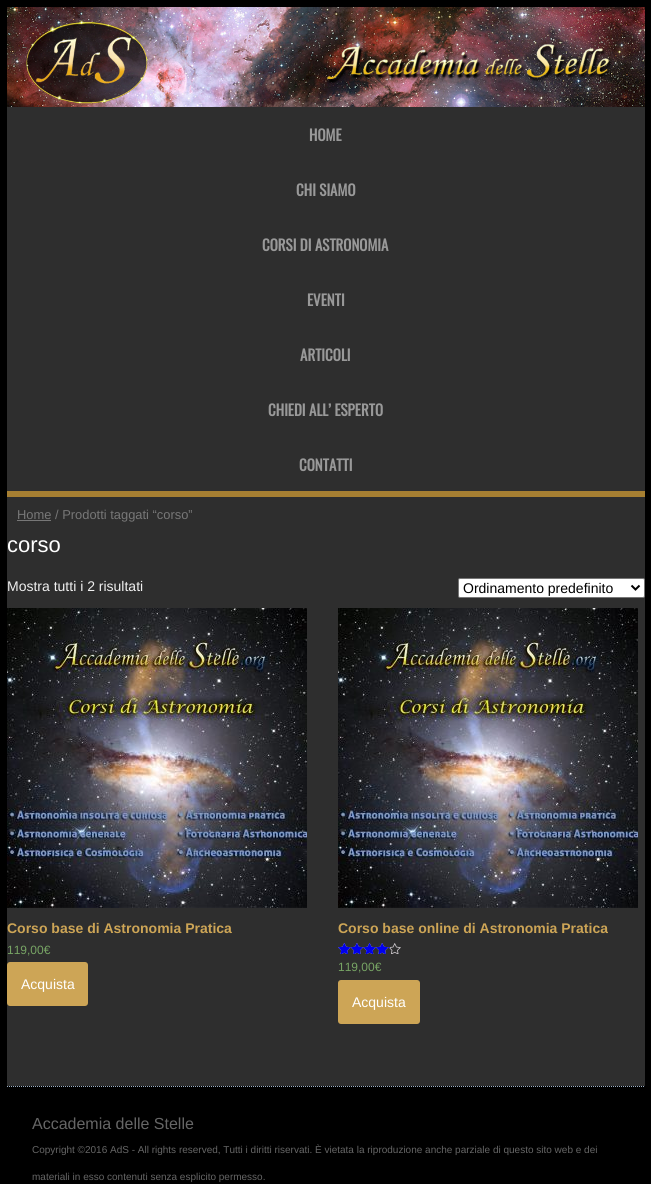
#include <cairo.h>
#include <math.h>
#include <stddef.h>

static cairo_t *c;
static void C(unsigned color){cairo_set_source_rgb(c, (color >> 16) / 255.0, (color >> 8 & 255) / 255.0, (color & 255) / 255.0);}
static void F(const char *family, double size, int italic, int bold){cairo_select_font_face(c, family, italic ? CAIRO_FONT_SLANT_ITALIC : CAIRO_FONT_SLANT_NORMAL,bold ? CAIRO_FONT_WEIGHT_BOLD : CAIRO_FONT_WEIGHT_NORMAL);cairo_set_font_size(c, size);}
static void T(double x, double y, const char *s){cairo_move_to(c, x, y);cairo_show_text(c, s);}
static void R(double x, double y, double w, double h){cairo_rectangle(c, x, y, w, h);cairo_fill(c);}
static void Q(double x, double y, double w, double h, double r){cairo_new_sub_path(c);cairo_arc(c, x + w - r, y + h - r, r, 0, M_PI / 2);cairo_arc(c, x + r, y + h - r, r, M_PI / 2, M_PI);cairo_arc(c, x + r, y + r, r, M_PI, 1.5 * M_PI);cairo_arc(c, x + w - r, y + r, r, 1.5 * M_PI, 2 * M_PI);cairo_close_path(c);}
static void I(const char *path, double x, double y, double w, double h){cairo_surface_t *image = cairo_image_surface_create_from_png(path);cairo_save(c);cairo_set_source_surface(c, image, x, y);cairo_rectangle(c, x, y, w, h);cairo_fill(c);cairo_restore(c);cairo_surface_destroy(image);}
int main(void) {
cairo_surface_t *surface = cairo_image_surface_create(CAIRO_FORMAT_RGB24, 651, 1184);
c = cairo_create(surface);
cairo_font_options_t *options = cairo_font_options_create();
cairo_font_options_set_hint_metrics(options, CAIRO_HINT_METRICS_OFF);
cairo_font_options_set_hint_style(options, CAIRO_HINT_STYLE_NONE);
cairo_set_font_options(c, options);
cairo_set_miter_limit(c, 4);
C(0x000000);
cairo_paint(c);
C(0x2e2e2e);
R(7,107,638,979);
I("1.png",7,7,638,100);
C(0xa67f32);
R(7,491,638,6);
F("Oswald",15,0,1);
C(0x999999);
T(309,141,"HOME");
T(296,196,"CHI SIAMO");
T(262,251,"CORSI DI ASTRONOMIA");
T(307,306,"EVENTI");
T(300,361,"ARTICOLI");
T(268,416,"CHIEDI ALL’ ESPERTO");
T(299,471,"CONTATTI");
C(0x777777);
R(17,520,34,1);
F("Liberation Sans",12.9,0,0);
T(17,519,"Home / Prodotti taggati “corso”");
F("Liberation Sans",22,0,0);
C(0xffffff);
T(7,552,"corso");
F("Liberation Sans",14,0,0);
C(0xf0f0f0);
T(7,591,"Mostra tutti i 2 risultati");
C(0xffffff);
Q(458.5,578.5,186,19,1.5);
cairo_fill_preserve(c);
C(0x767676);
cairo_set_line_width(c,1);
cairo_stroke(c);
cairo_new_path(c);
cairo_move_to(c,631.5,585.5);
cairo_line_to(c,635.5,589.5);
cairo_line_to(c,639.5,585.5);
C(0x000000);
cairo_set_line_width(c,2);
cairo_stroke(c);
T(463,593,"Ordinamento predefinito");
I("2.png",7,608,300,300);
F("Liberation Sans",14,0,1);
C(0xcda556);
T(7,933,"Corso base di Astronomia Pratica");
F("Liberation Sans",12,0,0);
C(0x77a464);
T(7,954,"119,00€");
C(0xcda556);
Q(7,962,81,44,3);
cairo_fill(c);
F("Liberation Sans",14,0,0);
C(0xffffff);
T(21,989,"Acquista");
I("2.png",338,608,300,300);
F("Liberation Sans",14,0,1);
C(0xcda556);
T(338,933,"Corso base online di Astronomia Pratica");
I("3.png",338,943,63,11);
I("4.png",338,943,52,11);
F("Liberation Sans",12,0,0);
C(0x77a464);
T(338,971,"119,00€");
C(0xcda556);
Q(338,980,82,44,3);
cairo_fill(c);
F("Liberation Sans",14,0,0);
C(0xffffff);
T(352,1007,"Acquista");
cairo_new_path(c);
cairo_move_to(c,7,1086.5);
cairo_line_to(c,645,1086.5);
C(0x9cafc4);
cairo_set_line_width(c,1);
cairo_set_dash(c,(double[]){1,1},2,0);
cairo_stroke(c);
F("Liberation Sans",16,0,0);
C(0x666666);
T(32,1129,"Accademia delle Stelle");
F("Liberation Sans",10,0,0);
T(32,1153,"Copyright ©2016 AdS - All rights reserved, Tutti i diritti riservati. È vietata la riproduzione anche parziale di questo sito web e dei");
T(32,1180,"materiali in esso contenuti senza esplicito permesso.");
cairo_surface_write_to_png(surface, "o.png");
cairo_font_options_destroy(options);
cairo_destroy(c);
cairo_surface_destroy(surface);
return 0;
}
